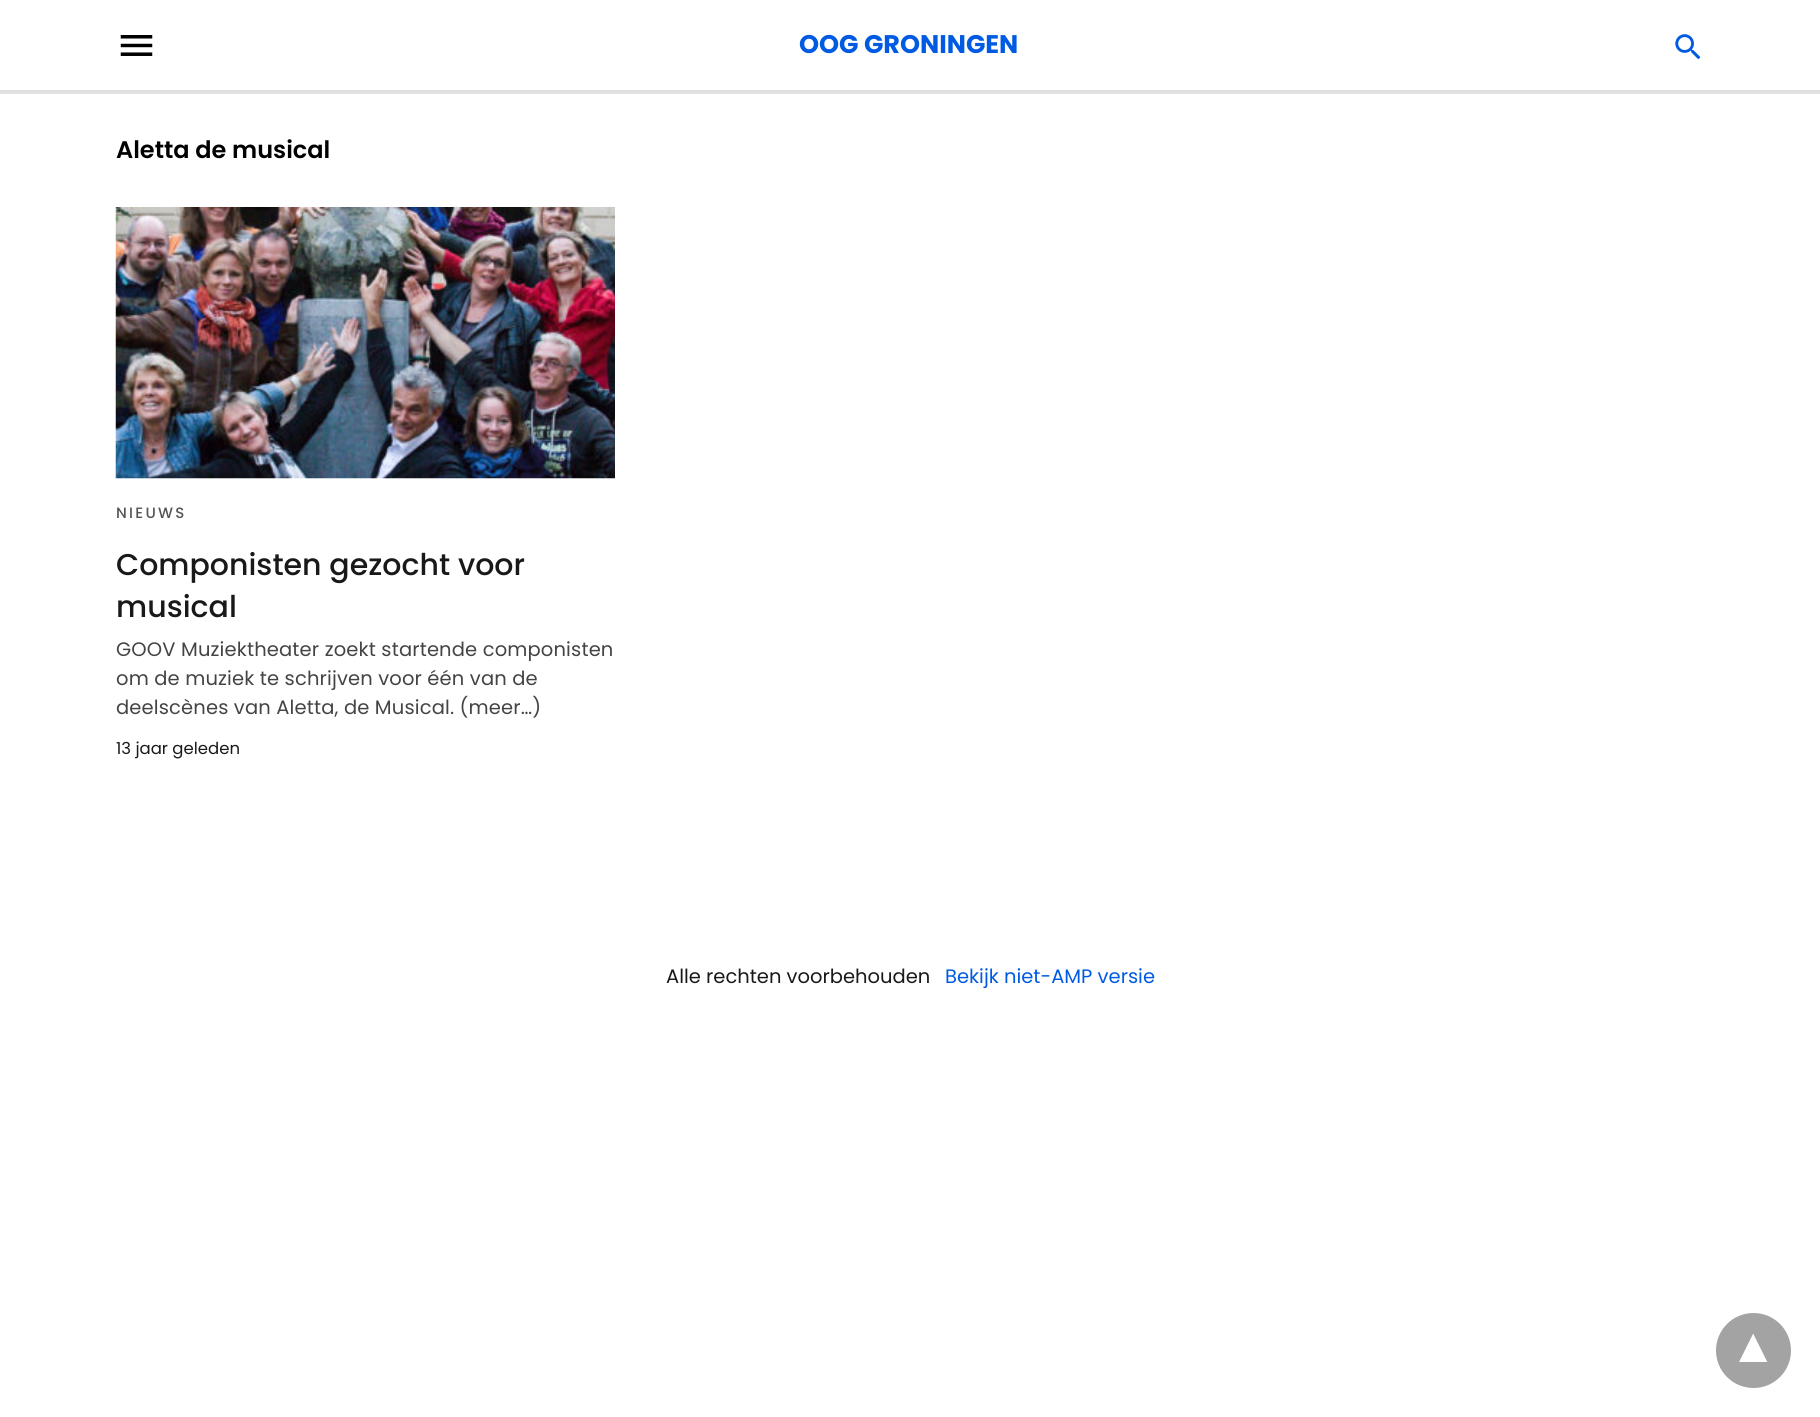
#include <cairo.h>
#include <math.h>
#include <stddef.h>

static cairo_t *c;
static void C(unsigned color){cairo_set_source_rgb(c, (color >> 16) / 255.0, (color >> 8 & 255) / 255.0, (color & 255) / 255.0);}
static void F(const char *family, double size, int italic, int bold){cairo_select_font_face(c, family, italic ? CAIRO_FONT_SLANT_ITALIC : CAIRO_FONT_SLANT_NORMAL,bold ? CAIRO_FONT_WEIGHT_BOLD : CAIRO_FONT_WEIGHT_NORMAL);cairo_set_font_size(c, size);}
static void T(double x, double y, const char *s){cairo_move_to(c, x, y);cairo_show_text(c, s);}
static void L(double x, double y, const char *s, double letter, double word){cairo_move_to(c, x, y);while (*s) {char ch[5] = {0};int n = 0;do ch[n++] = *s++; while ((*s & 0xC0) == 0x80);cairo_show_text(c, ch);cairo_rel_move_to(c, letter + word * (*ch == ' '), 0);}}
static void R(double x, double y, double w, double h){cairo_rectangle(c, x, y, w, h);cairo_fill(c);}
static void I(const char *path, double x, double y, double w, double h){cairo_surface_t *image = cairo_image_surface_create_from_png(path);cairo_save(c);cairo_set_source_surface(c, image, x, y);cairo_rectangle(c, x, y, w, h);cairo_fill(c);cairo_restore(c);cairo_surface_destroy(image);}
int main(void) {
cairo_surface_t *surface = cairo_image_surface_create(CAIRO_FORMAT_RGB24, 1820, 1417);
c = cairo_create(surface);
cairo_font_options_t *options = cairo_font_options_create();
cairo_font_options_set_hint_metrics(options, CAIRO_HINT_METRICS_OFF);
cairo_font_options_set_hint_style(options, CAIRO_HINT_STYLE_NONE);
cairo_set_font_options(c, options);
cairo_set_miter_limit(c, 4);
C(0xffffff);
cairo_paint(c);
C(0xe0e0e0);
R(0,90,1820,2);
I("1.png",120,35,33,21);
F("Poppins",25.5,0,1);
C(0x005be2);
T(799,53,"OOG GRONINGEN");
I("2.png",1675,34,26,26);
C(0xe3e3e3);
R(0,92,1820,2);
F("Poppins SemiBold",24,0,0);
C(0x000000);
T(116,158,"Aletta de musical");
I("3.png",115,207,500,272);
F("Poppins Medium",15,0,0);
C(0x555555);
L(116,518,"NIEUWS",2.25,0);
F("Poppins Medium",30,0,0);
C(0x191919);
T(116,575,"Componisten gezocht voor");
T(116,617,"musical");
F("Poppins",19.5,0,0);
C(0x444444);
L(116,656,"GOOV Muziektheater zoekt startende componisten",.15,0);
L(116,685,"om de muziek te schrijven voor één van de",.15,0);
L(116,714,"deelscènes van Aletta, de Musical. (meer…)",.15,0);
F("Poppins",16.5,0,0);
C(0x191919);
T(116,754,"13 jaar geleden");
F("Poppins",19.5,0,0);
T(666,983,"Alle rechten voorbehouden");
C(0x005be2);
T(945,983,"Bekijk niet-AMP versie");
C(0xa3a3a3);
cairo_new_path(c);
cairo_arc(c,1753.5,1350.5,37.5,0,2 * M_PI);
cairo_fill(c);
F("DejaVu Sans",52,0,1);
C(0xffffff);
cairo_save(c);
cairo_translate(c,1767,1334);
cairo_rotate(c,180 * M_PI / 180);
T(0,0,"▾");
cairo_restore(c);
cairo_surface_write_to_png(surface, "o.png");
cairo_font_options_destroy(options);
cairo_destroy(c);
cairo_surface_destroy(surface);
return 0;
}
